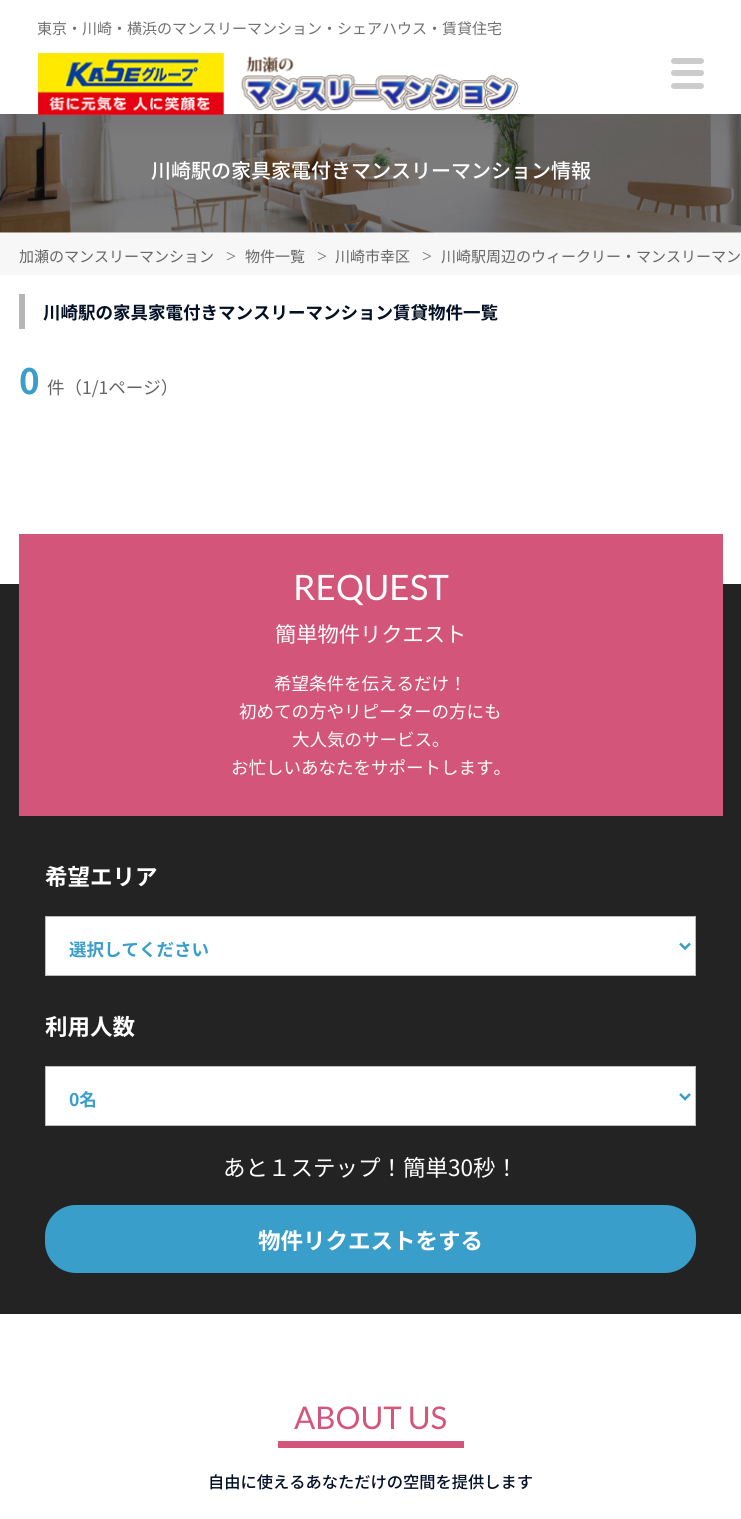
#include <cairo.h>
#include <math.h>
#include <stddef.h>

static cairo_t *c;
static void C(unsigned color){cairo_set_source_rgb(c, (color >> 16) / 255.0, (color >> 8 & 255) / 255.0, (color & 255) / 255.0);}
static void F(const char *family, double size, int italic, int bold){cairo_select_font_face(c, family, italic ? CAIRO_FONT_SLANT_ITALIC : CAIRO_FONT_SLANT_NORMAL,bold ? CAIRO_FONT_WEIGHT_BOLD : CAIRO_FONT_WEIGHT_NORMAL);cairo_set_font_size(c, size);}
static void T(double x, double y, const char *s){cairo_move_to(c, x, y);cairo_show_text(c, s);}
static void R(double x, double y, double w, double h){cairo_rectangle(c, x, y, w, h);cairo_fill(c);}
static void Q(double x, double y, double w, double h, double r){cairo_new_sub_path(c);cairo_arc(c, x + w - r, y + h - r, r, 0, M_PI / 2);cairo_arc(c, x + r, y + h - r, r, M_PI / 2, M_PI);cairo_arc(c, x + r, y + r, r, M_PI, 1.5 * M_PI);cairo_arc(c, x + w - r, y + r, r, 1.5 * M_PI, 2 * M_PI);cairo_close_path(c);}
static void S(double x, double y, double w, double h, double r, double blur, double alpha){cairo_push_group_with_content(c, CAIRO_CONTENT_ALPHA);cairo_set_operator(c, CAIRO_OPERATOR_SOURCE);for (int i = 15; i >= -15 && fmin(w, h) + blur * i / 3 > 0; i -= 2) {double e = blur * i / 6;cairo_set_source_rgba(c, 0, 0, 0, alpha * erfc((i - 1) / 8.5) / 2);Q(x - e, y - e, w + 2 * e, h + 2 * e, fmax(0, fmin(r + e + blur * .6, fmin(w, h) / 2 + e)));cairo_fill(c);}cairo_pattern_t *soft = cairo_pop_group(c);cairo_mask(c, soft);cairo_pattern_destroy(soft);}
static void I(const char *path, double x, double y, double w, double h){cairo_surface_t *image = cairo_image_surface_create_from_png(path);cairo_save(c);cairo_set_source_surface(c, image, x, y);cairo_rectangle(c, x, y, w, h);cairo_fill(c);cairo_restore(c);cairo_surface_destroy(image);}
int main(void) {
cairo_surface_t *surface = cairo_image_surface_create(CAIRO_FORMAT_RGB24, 741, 1519);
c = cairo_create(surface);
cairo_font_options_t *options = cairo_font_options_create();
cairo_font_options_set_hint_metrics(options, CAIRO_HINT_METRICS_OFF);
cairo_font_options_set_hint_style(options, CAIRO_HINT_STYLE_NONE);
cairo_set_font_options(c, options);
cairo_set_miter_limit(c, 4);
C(0xffffff);
cairo_paint(c);
I("1.png",0,114,741,119);
C(0x646464);
S(0,6,741,114,0,12.5,.3);
C(0xffffff);
R(0,0,741,114);
F("Noto Sans JP",15,0,0);
C(0x707070);
T(37,34,"東京・川崎・横浜のマンスリーマンション・シェアハウス・賃貸住宅");
I("2.png",38,53,482,62);
C(0xcccccc);
Q(671,58,33,6,3);
cairo_fill(c);
Q(671,70,33,6,3);
cairo_fill(c);
Q(671,83,33,6,3);
cairo_fill(c);
F("Noto Sans JP Medium",20,0,0);
C(0xffffff);
T(151,178,"川崎駅の家具家電付きマンスリーマンション情報");
C(0xf7f7f7);
R(0,233,741,42);
F("Noto Sans JP",15,0,0);
C(0x656565);
T(19,262,"加瀬のマンスリーマンション");
F("Liberation Serif",17.5,0,0);
T(226,262,">");
F("Noto Sans JP",15,0,0);
T(245,262,"物件一覧");
F("Liberation Serif",17.5,0,0);
T(317,262,">");
F("Noto Sans JP",15,0,0);
T(335,262,"川崎市幸区");
F("Liberation Serif",17.5,0,0);
T(422,262,">");
F("Noto Sans JP",15,0,0);
T(441,262,"川崎駅周辺のウィークリー・マンスリーマン");
C(0xb5b5b5);
R(19,294,6,35);
F("Noto Sans JP",17.5,0,1);
C(0x041025);
T(43,319,"川崎駅の家具家電付きマンスリーマンション賃貸物件一覧");
F("Noto Sans JP",35,0,1);
C(0x399ec9);
T(19,394,"0");
F("Noto Sans JP",17.5,0,0);
C(0x656565);
T(47,394,"件（1/1ページ）");
C(0x232323);
R(0,584,741,730);
C(0xd35579);
R(19,534,704,282);
F("Lato",35,0,0);
C(0xffffff);
T(293,600,"REQUEST");
F("Noto Sans JP",21.25,0,0);
T(275,642,"簡単物件リクエスト");
F("Noto Sans JP",17.5,0,0);
T(274,690,"希望条件を伝えるだけ！");
T(239,718,"初めての方やリピーターの方にも");
T(292,746,"大人気のサービス。");
T(231,774,"お忙しいあなたをサポートします。");
F("Noto Sans JP",22.5,0,1);
T(45,885,"希望エリア");
cairo_rectangle(c,45.5,916.5,650,59);
cairo_fill_preserve(c);
C(0xbbbbbb);
cairo_set_line_width(c,1);
cairo_stroke(c);
cairo_new_path(c);
cairo_move_to(c,680,943.5);
cairo_line_to(c,685,948.5);
cairo_line_to(c,690,943.5);
C(0x399ec9);
cairo_set_line_width(c,2.5);
cairo_stroke(c);
F("Noto Sans JP",17.5,0,1);
T(69,956,"選択してください");
F("Noto Sans JP",22.5,0,1);
C(0xffffff);
T(45,1035,"利用人数");
cairo_rectangle(c,45.5,1066.5,650,59);
cairo_fill_preserve(c);
C(0xbbbbbb);
cairo_set_line_width(c,1);
cairo_stroke(c);
cairo_new_path(c);
cairo_move_to(c,680,1094);
cairo_line_to(c,685,1099);
cairo_line_to(c,690,1094);
C(0x399ec9);
cairo_set_line_width(c,2.5);
cairo_stroke(c);
F("Noto Sans JP",17.5,0,1);
T(69,1106,"0名");
F("Noto Sans JP",22.5,0,0);
C(0xffffff);
T(223,1176,"あと１ステップ！簡単30秒！");
C(0x399ec9);
Q(45,1205,651,68,31);
cairo_fill(c);
F("Noto Sans JP",22.5,0,1);
C(0xffffff);
T(258,1249,"物件リクエストをする");
C(0xd35579);
R(278,1441,186,7);
F("Lato",31.25,0,0);
T(294,1429,"ABOUT US");
F("Noto Sans JP Medium",16.25,0,0);
C(0x041025);
T(208,1488,"自由に使えるあなただけの空間を提供します");
cairo_surface_write_to_png(surface, "o.png");
cairo_font_options_destroy(options);
cairo_destroy(c);
cairo_surface_destroy(surface);
return 0;
}
